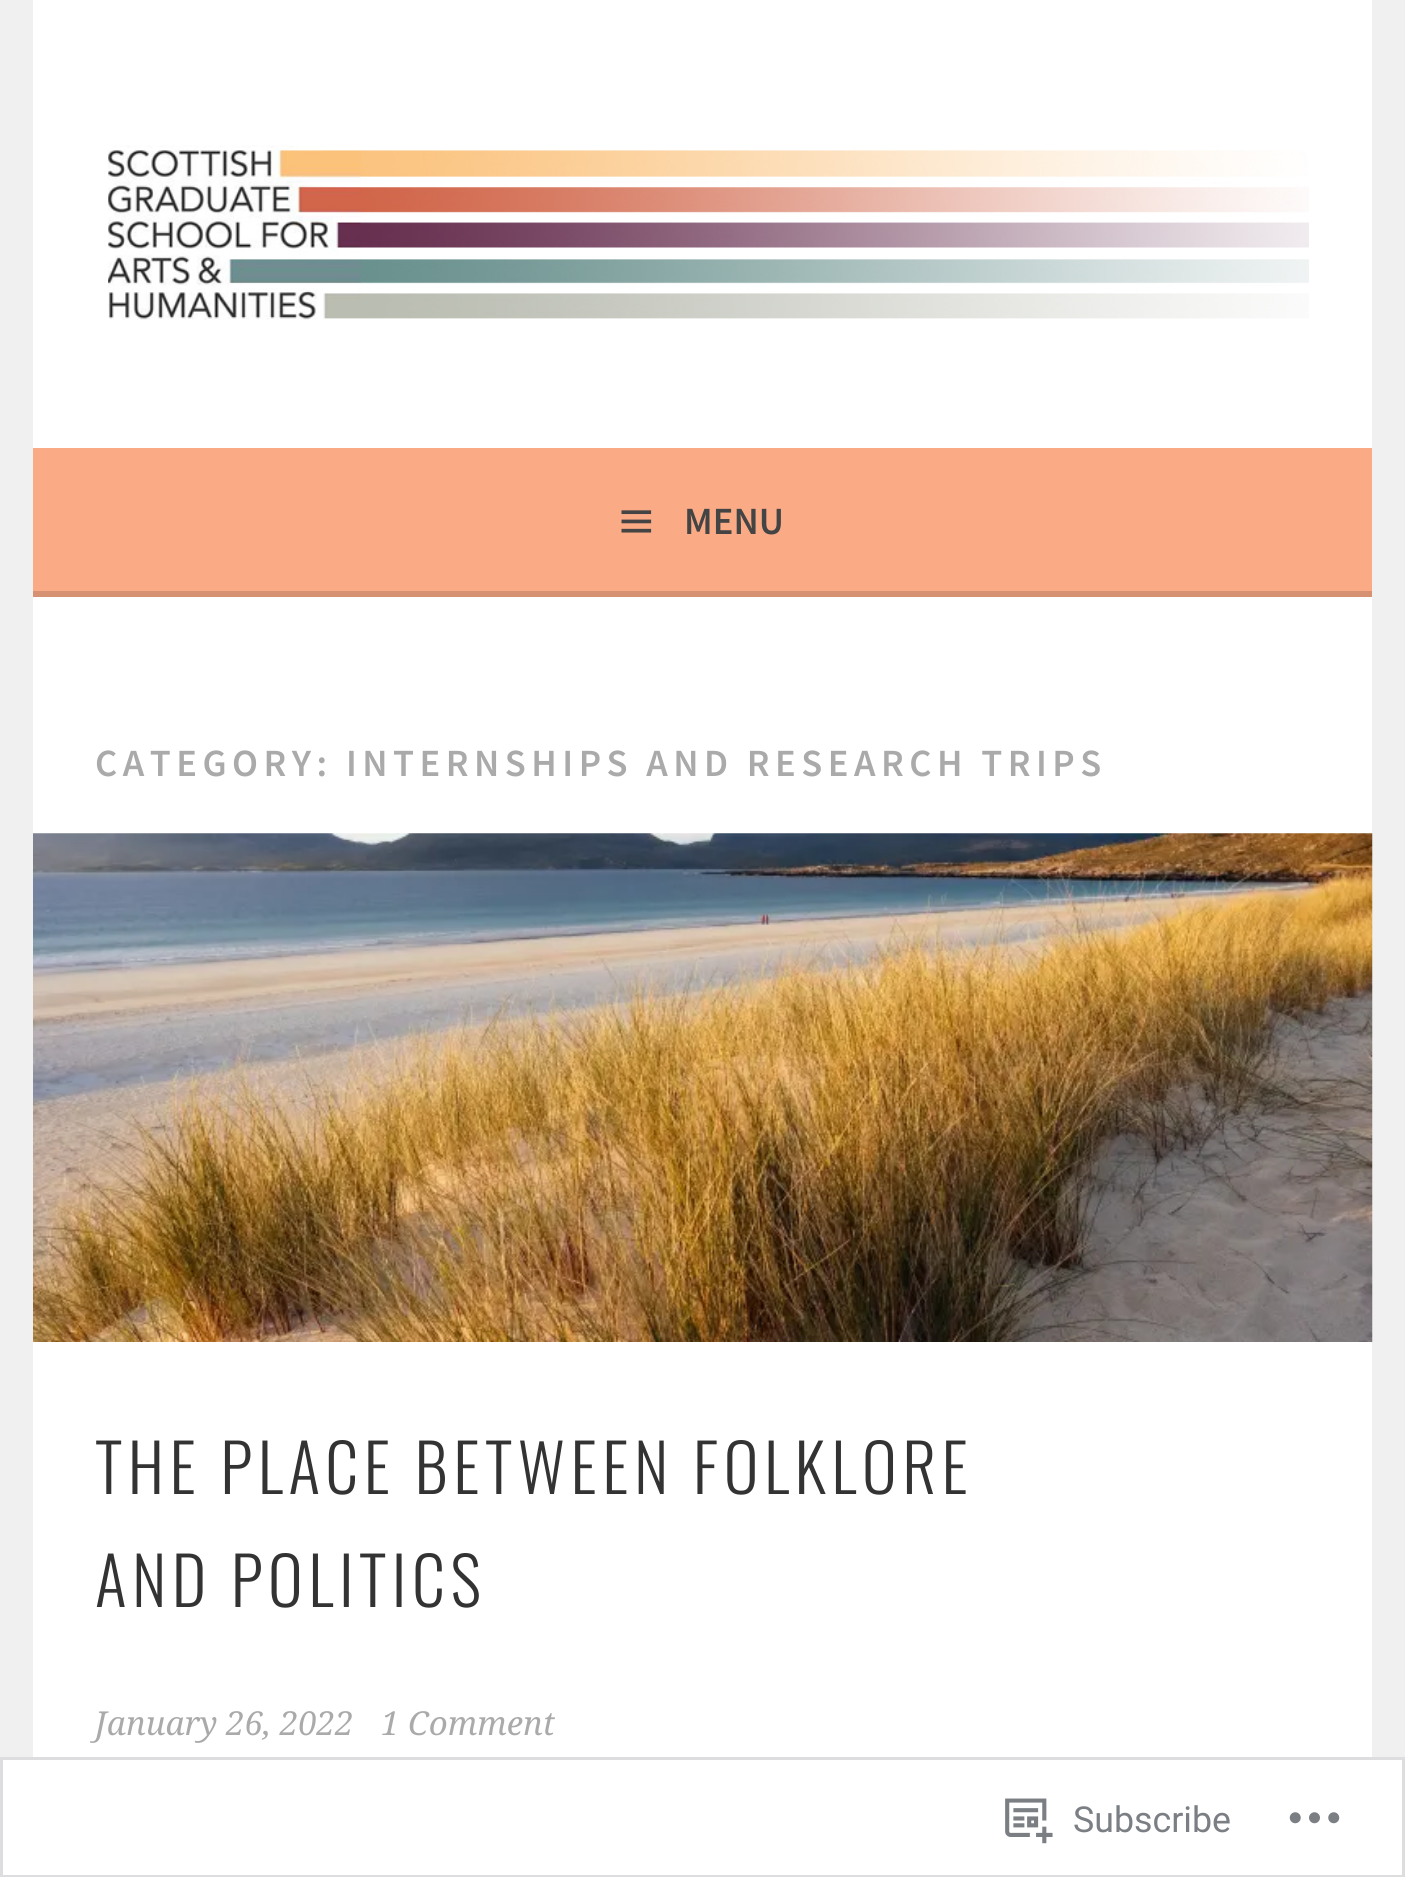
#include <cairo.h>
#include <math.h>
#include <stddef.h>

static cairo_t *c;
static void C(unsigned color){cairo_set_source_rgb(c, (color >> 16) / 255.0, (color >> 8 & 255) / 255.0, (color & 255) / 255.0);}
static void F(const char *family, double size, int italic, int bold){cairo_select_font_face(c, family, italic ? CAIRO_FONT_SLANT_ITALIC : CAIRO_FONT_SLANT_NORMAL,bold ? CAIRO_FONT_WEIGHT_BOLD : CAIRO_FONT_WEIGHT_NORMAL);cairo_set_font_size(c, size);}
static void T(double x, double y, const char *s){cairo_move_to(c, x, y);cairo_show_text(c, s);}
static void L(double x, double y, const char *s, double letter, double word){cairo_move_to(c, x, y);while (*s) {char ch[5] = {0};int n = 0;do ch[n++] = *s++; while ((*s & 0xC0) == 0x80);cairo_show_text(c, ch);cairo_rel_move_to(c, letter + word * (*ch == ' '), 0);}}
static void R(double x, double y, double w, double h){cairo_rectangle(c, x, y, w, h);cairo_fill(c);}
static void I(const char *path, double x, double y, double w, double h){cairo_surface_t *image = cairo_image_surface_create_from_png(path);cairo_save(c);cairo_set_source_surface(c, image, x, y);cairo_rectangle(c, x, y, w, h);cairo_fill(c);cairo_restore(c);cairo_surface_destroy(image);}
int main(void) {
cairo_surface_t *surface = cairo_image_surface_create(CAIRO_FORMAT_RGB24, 1405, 1877);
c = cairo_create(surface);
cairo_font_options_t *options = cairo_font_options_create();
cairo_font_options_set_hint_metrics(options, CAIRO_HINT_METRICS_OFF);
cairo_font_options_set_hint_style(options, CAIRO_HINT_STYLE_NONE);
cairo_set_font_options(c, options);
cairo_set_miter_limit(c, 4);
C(0xf0f0f0);
cairo_paint(c);
C(0xffffff);
R(0,1757,1405,120);
R(33,0,1339,448);
I("1.png",108,145,1201,175);
C(0xfbaa86);
R(33,448,1339,143);
C(0xd59172);
R(33,591,1339,6);
I("2.png",621,510,31,23);
F("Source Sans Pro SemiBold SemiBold",38.5,0,0);
C(0x444444);
T(684,534,"MENU");
C(0xffffff);
R(33,597,1339,1160);
C(0xaaaaaa);
L(95,776,"CATEGORY: INTERNSHIPS AND RESEARCH TRIPS",5.5,0);
I("3.png",33,833,1340,509);
F("Oswald Light",66,0,0);
C(0x333333);
L(95,1494,"THE PLACE BETWEEN FOLKLORE",5.5,0);
L(95,1607,"AND POLITICS",5.5,0);
F("Droid Serif",33,1,0);
C(0xaaaaaa);
T(95,1735,"January 26, 2022");
T(381,1735,"1 Comment");
cairo_rectangle(c,1.5,1758.5,1402,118);
cairo_set_source_rgba(c,0.863,0.863,0.871,0.98);
cairo_set_line_width(c,3);
cairo_stroke(c);
I("4.png",1005,1798,48,46);
F("Roboto",35.75,0,0);
C(0x7b7f84);
T(1073,1832,"Subscribe");
I("5.png",1289,1812,51,12);
cairo_surface_write_to_png(surface, "o.png");
cairo_font_options_destroy(options);
cairo_destroy(c);
cairo_surface_destroy(surface);
return 0;
}
